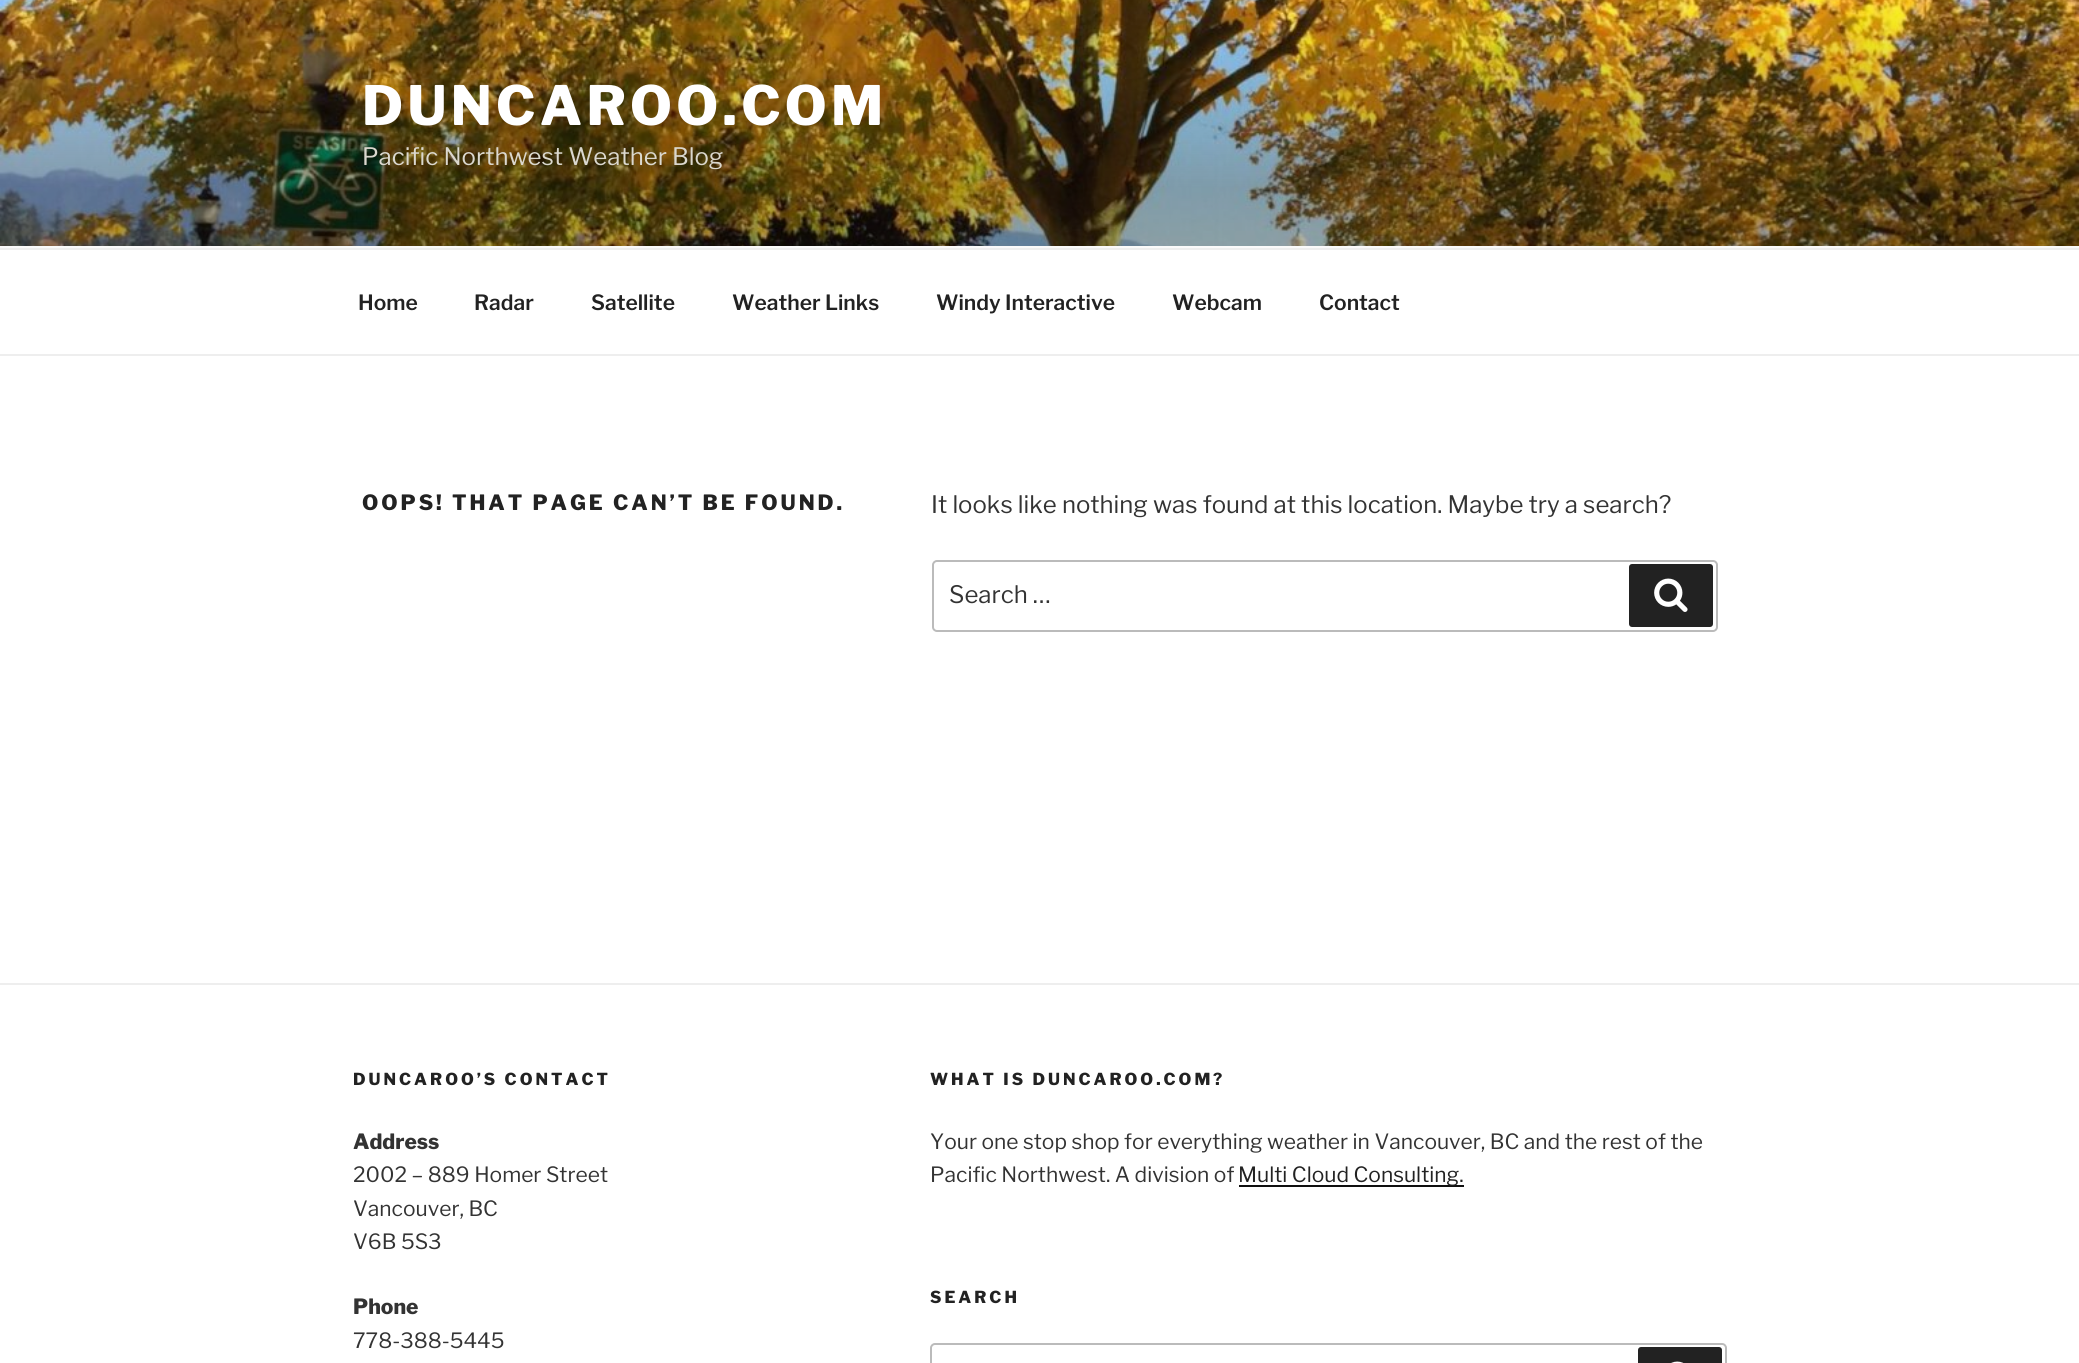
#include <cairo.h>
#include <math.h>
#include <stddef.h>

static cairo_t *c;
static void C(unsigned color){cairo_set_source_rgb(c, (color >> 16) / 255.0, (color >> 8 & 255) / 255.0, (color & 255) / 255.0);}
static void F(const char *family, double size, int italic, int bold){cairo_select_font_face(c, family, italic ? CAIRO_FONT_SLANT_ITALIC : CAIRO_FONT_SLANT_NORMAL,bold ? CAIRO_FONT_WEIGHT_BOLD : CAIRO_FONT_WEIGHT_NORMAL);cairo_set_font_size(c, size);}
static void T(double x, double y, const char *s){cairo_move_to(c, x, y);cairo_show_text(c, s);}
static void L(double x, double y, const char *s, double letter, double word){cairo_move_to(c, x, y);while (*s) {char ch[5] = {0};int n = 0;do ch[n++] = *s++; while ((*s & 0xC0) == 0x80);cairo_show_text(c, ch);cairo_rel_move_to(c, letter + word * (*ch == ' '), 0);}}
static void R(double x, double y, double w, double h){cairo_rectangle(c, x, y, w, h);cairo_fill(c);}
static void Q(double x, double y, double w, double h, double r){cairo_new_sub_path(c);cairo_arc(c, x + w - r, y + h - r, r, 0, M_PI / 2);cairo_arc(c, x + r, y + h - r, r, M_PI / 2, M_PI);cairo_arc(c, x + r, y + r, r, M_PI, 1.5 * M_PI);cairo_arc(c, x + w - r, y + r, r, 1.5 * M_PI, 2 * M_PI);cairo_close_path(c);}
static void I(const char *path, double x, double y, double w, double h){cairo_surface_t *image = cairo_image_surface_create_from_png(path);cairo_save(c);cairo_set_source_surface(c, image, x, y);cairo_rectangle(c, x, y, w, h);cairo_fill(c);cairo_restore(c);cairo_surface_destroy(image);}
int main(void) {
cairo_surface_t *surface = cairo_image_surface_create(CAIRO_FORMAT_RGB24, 2079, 1363);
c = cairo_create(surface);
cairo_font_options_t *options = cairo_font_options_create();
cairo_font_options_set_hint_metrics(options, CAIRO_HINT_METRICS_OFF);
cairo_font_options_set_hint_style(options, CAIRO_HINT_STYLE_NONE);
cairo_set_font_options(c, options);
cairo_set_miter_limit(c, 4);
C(0xffffff);
cairo_paint(c);
C(0xfafafa);
R(0,246,2079,2);
I("1.png",0,0,2079,246);
F("Libre Franklin Thin",54,0,0);
C(0xffffff);
L(362,125,"DUNCAROO.COM",4.25,0);
F("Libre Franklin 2 Thin",24,0,0);
C(0xdbd8cf);
T(362,165,"Pacific Northwest Weather Blog");
C(0xeeeeee);
R(0,248,2079,2);
R(0,354,2079,2);
F("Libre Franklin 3 Thin",21,0,0);
C(0x222222);
T(358,310,"Home");
T(474,310,"Radar");
T(591,310,"Satellite");
T(732,310,"Weather Links");
T(936,310,"Windy Interactive");
T(1172,310,"Webcam");
T(1319,310,"Contact");
F("Libre Franklin Thin",21,0,0);
L(362,510,"OOPS! THAT PAGE CAN’T BE FOUND.",2.95,0);
F("Libre Franklin 2 Thin",24,0,0);
C(0x333333);
T(931,513,"It looks like nothing was found at this location. Maybe try a search?");
Q(933,561,784,70,4);
C(0xbbbbbb);
cairo_stroke(c);
C(0x333333);
T(949,603,"Search …");
C(0x222222);
Q(1629,564,84,63,3);
cairo_fill(c);
I("2.png",1654,578,34,34);
C(0xeeeeee);
R(0,983,2079,2);
F("Libre Franklin Thin",16.5,0,0);
C(0x222222);
L(353,1085,"DUNCAROO’S CONTACT",3,0);
F("Libre Franklin Thin",21,0,0);
C(0x333333);
T(353,1149,"Address");
F("Libre Franklin 2 Thin",21,0,0);
T(353,1182,"2002 – 889 Homer Street");
T(353,1216,"Vancouver, BC");
T(353,1249,"V6B 5S3");
F("Libre Franklin Thin",21,0,0);
T(353,1314,"Phone");
F("Libre Franklin 2 Thin",21,0,0);
T(353,1348,"778-388-5445");
F("Libre Franklin Thin",16.5,0,0);
C(0x222222);
L(930,1085,"WHAT IS DUNCAROO.COM?",3,0);
F("Libre Franklin 2 Thin",21,0,0);
C(0x333333);
T(930,1149,"Your one stop shop for everything weather in Vancouver, BC and the rest of the");
T(930,1182,"Pacific Northwest. A division of");
C(0x0f0f0f);
R(1239,1185,225,2);
C(0x222222);
T(1238,1182,"Multi Cloud Consulting.");
F("Libre Franklin Thin",16.5,0,0);
L(930,1303,"SEARCH",3,0);
Q(931,1344,795,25,4);
C(0xbbbbbb);
cairo_stroke(c);
C(0x222222);
Q(1638,1347,84,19,3);
cairo_fill(c);
I("3.png",1671,1361,13,2);
cairo_surface_write_to_png(surface, "o.png");
cairo_font_options_destroy(options);
cairo_destroy(c);
cairo_surface_destroy(surface);
return 0;
}
